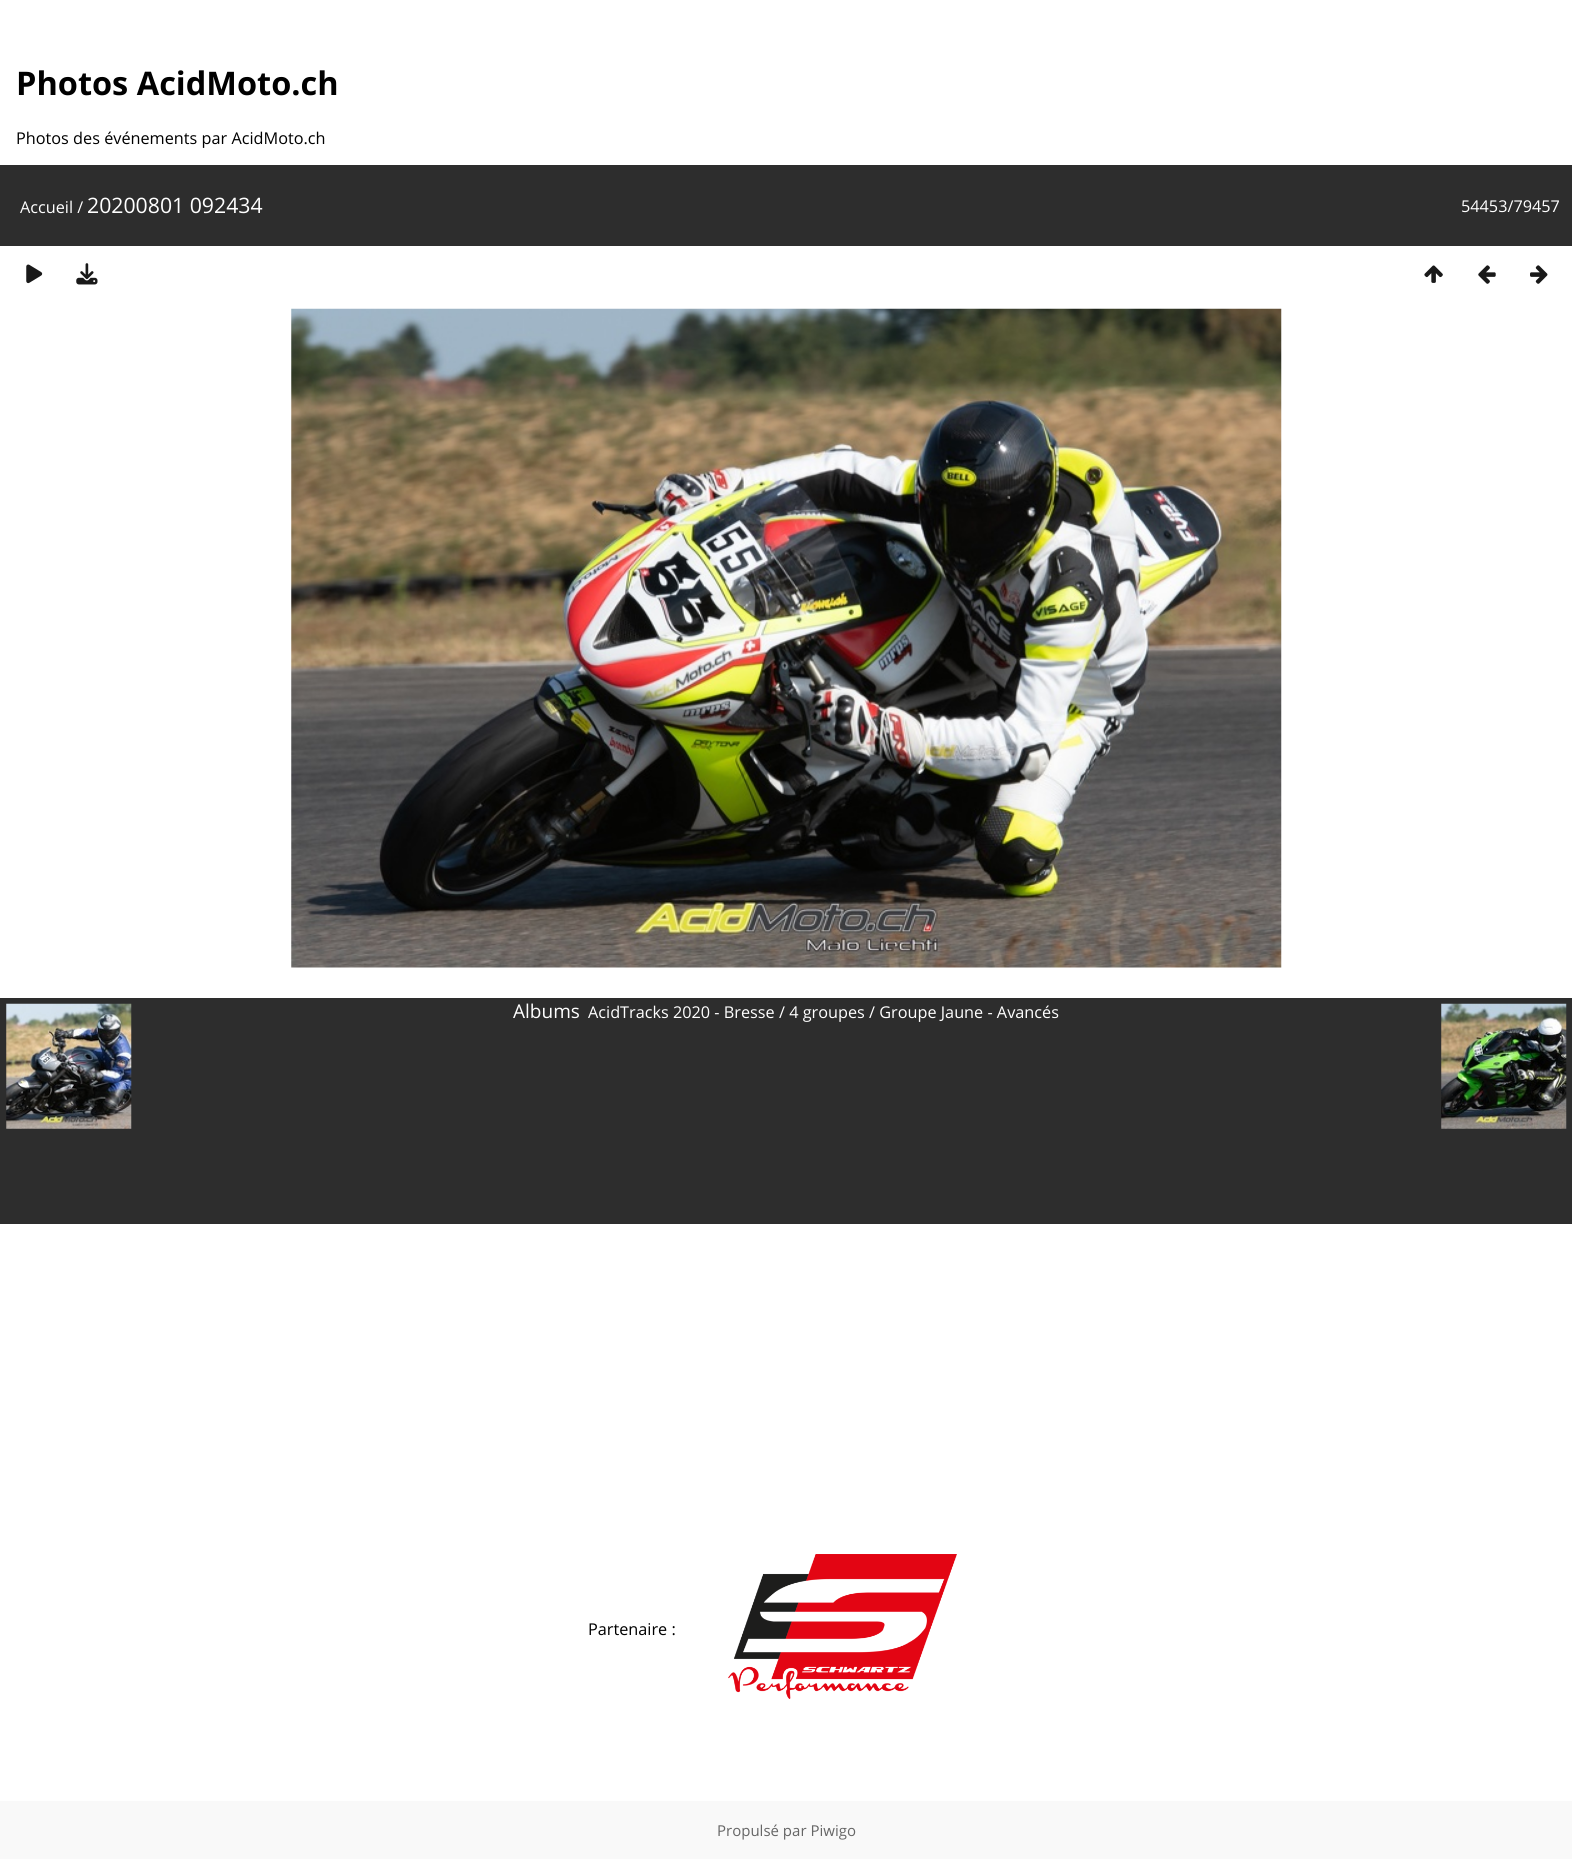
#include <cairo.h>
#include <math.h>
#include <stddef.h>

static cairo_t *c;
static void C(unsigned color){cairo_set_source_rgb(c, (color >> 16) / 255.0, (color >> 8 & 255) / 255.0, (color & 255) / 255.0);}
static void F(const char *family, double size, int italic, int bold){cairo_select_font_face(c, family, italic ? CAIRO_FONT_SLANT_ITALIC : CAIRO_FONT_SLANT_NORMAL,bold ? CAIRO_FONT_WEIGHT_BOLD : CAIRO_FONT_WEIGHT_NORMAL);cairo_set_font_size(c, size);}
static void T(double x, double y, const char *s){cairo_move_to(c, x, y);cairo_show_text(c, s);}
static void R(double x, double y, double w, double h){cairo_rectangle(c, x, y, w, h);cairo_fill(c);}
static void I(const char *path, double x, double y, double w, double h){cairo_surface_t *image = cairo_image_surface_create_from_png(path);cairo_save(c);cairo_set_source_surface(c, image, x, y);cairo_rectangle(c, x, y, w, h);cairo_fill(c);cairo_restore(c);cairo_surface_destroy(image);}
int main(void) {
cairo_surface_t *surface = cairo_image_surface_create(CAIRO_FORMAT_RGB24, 1572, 1859);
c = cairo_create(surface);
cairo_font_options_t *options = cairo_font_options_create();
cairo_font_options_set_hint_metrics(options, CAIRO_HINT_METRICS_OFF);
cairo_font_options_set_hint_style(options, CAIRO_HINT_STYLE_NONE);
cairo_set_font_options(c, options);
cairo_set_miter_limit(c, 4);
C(0xffffff);
cairo_paint(c);
F("Open Sans",32.5,0,1);
C(0x000000);
T(16,95,"Photos AcidMoto.ch");
F("Open Sans",16.25,0,0);
T(16,144,"Photos des événements par AcidMoto.ch");
C(0x2d2d2d);
R(0,165,1572,81);
C(0xffffff);
T(20,213,"Accueil /");
F("Open Sans",21.25,0,0);
T(87,213,"20200801 092434");
F("Open Sans",16.25,0,0);
T(1461,212,"54453/79457");
I("1.png",26,264,17,20);
I("2.png",76,263,22,22);
I("3.png",1424,265,19,18);
I("4.png",1478,265,18,19);
I("5.png",1530,265,18,19);
I("6.png",291,308,991,660);
C(0x2d2d2d);
R(0,998,1572,226);
I("7.png",6,1003,126,126);
I("8.png",1441,1003,126,126);
F("Open Sans",19,0,0);
C(0xffffff);
T(513,1018,"Albums");
F("Open Sans",16.25,0,0);
T(588,1018,"AcidTracks 2020 - Bresse / 4 groupes / Groupe Jaune - Avancés");
C(0x000000);
T(588,1635,"Partenaire :");
I("9.png",728,1554,229,145);
C(0xf9f9f9);
R(0,1801,1572,58);
F("Open Sans",15,0,0);
C(0x666666);
T(717,1836,"Propulsé par Piwigo");
cairo_surface_write_to_png(surface, "o.png");
cairo_font_options_destroy(options);
cairo_destroy(c);
cairo_surface_destroy(surface);
return 0;
}
